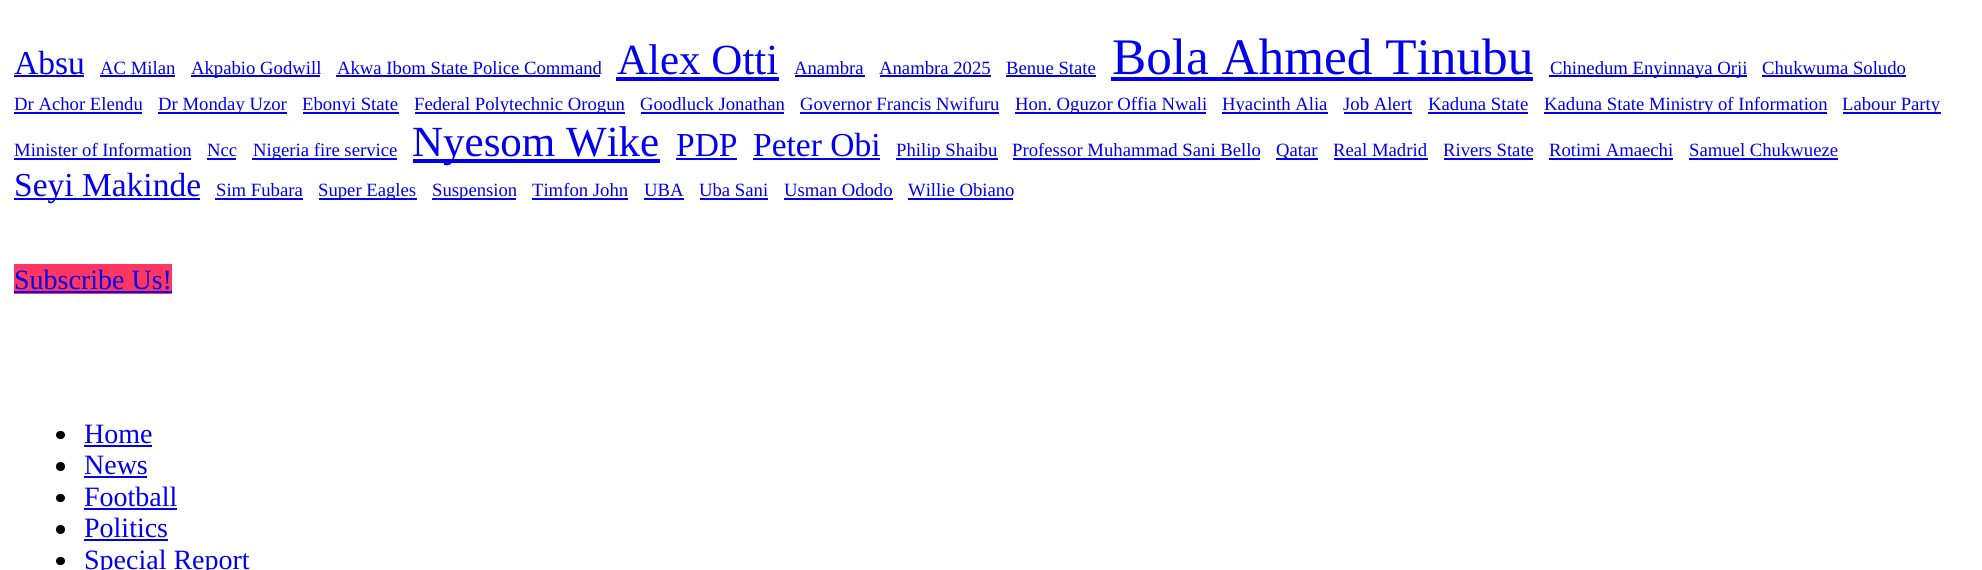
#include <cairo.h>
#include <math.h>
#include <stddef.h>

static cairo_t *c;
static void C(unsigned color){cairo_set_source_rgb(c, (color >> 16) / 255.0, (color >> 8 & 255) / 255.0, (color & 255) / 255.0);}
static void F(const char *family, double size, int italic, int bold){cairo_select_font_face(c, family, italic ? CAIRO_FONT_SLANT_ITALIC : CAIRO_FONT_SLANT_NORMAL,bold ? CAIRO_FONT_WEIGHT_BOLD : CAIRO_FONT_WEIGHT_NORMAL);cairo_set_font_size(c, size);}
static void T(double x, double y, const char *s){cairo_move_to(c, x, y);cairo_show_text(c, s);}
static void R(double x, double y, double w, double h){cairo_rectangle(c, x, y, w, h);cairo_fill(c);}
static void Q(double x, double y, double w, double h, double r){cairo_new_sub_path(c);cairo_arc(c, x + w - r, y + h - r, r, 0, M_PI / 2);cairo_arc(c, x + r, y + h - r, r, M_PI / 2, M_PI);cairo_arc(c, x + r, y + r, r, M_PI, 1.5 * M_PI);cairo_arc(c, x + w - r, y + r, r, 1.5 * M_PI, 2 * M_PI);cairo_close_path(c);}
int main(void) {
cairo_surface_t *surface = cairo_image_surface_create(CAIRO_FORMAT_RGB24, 1982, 570);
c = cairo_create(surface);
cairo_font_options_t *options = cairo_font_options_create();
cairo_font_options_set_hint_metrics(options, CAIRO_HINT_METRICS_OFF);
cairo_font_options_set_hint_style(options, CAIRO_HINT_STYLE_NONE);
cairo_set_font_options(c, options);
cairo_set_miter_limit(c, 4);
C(0xffffff);
cairo_paint(c);
F("Liberation Serif",33.5,0,0);
C(0x0000ee);
T(14,74,"Absu");
R(14,75,70,2);
F("Liberation Serif",18.7,0,0);
T(100,74,"AC Milan");
R(100,75,75,2);
R(191,75,129,2);
T(191,74,"Akpabio Godwill");
T(337,74,"Akwa Ibom State Police Command");
R(336,75,264,2);
F("Liberation Serif",43,0,0);
T(617,74,"Alex Otti");
R(616,77,163,4);
F("Liberation Serif",18.7,0,0);
T(794,74,"Anambra");
R(795,75,70,2);
T(879,74,"Anambra 2025");
R(880,75,111,2);
T(1006,74,"Benue State");
R(1006,75,90,2);
F("Liberation Serif",51.25,0,0);
T(1112,74,"Bola Ahmed Tinubu");
R(1111,77,422,4);
R(1549,75,198,2);
F("Liberation Serif",18.7,0,0);
T(1550,74,"Chinedum Enyinnaya Orji");
T(1762,74,"Chukwuma Soludo");
R(1762,75,144,2);
T(14,110,"Dr Achor Elendu");
R(14,112,128,2);
R(158,112,129,2);
T(158,110,"Dr Monday Uzor");
R(303,112,96,2);
T(302,110,"Ebonyi State");
R(415,112,210,2);
T(414,110,"Federal Polytechnic Orogun");
T(640,110,"Goodluck Jonathan");
R(641,112,143,2);
T(800,110,"Governor Francis Nwifuru");
R(800,112,199,2);
R(1015,112,191,2);
T(1015,110,"Hon. Oguzor Offia Nwali");
R(1222,112,106,2);
T(1222,110,"Hyacinth Alia");
T(1343,110,"Job Alert");
R(1344,112,68,2);
T(1428,110,"Kaduna State");
R(1428,112,100,2);
R(1544,112,283,2);
T(1544,110,"Kaduna State Ministry of Information");
R(1843,112,98,2);
T(1842,110,"Labour Party");
T(14,156,"Minister of Information");
R(14,158,177,2);
T(207,156,"Ncc");
R(207,158,29,2);
R(252,158,145,2);
T(253,156,"Nigeria fire service");
R(413,159,247,4);
F("Liberation Serif",43,0,0);
T(412,156,"Nyesom Wike");
F("Liberation Serif",33.5,0,0);
T(676,156,"PDP");
R(676,158,61,2);
T(753,156,"Peter Obi");
R(753,158,127,2);
R(896,158,102,2);
F("Liberation Serif",18.7,0,0);
T(896,156,"Philip Shaibu");
T(1012,156,"Professor Muhammad Sani Bello");
R(1013,158,247,2);
R(1276,158,42,2);
T(1276,156,"Qatar");
T(1333,156,"Real Madrid");
R(1334,158,94,2);
T(1443,156,"Rivers State");
R(1444,158,89,2);
T(1549,156,"Rotimi Amaechi");
R(1549,158,124,2);
T(1689,156,"Samuel Chukwueze");
R(1689,158,149,2);
R(14,198,186,2);
F("Liberation Serif",33.5,0,0);
T(14,196,"Seyi Makinde");
F("Liberation Serif",18.7,0,0);
T(216,196,"Sim Fubara");
R(215,198,88,2);
R(319,198,98,2);
T(318,196,"Super Eagles");
R(432,198,84,2);
T(432,196,"Suspension");
T(532,196,"Timfon John");
R(532,198,96,2);
T(644,196,"UBA");
R(644,198,40,2);
T(699,196,"Uba Sani");
R(700,198,68,2);
T(784,196,"Usman Ododo");
R(784,198,109,2);
T(908,196,"Willie Obiano");
R(908,198,105,2);
C(0xff3562);
R(14,264,158,30);
F("Liberation Serif",28,0,0);
C(0x0000ee);
T(14,289,"Subscribe Us!");
R(14,291,158,2);
C(0x000000);
Q(56,431,9,8,4);
cairo_fill(c);
C(0x0000ee);
T(84,443,"Home");
R(84,445,68,2);
C(0x000000);
cairo_new_path(c);
cairo_arc(c,60.5,466.5,4.5,0,2 * M_PI);
cairo_fill(c);
C(0x0000ee);
T(84,474,"News");
R(84,476,63,2);
C(0x000000);
Q(56,494,9,8,4);
cairo_fill(c);
C(0x0000ee);
T(84,506,"Football");
R(84,508,93,2);
C(0x000000);
cairo_new_path(c);
cairo_arc(c,60.5,529.5,4.5,0,2 * M_PI);
cairo_fill(c);
C(0x0000ee);
T(84,537,"Politics");
R(84,539,84,2);
C(0x000000);
Q(56,557,9,8,4);
cairo_fill(c);
C(0x0000ee);
T(84,569,"Special Report");
cairo_surface_write_to_png(surface, "o.png");
cairo_font_options_destroy(options);
cairo_destroy(c);
cairo_surface_destroy(surface);
return 0;
}
